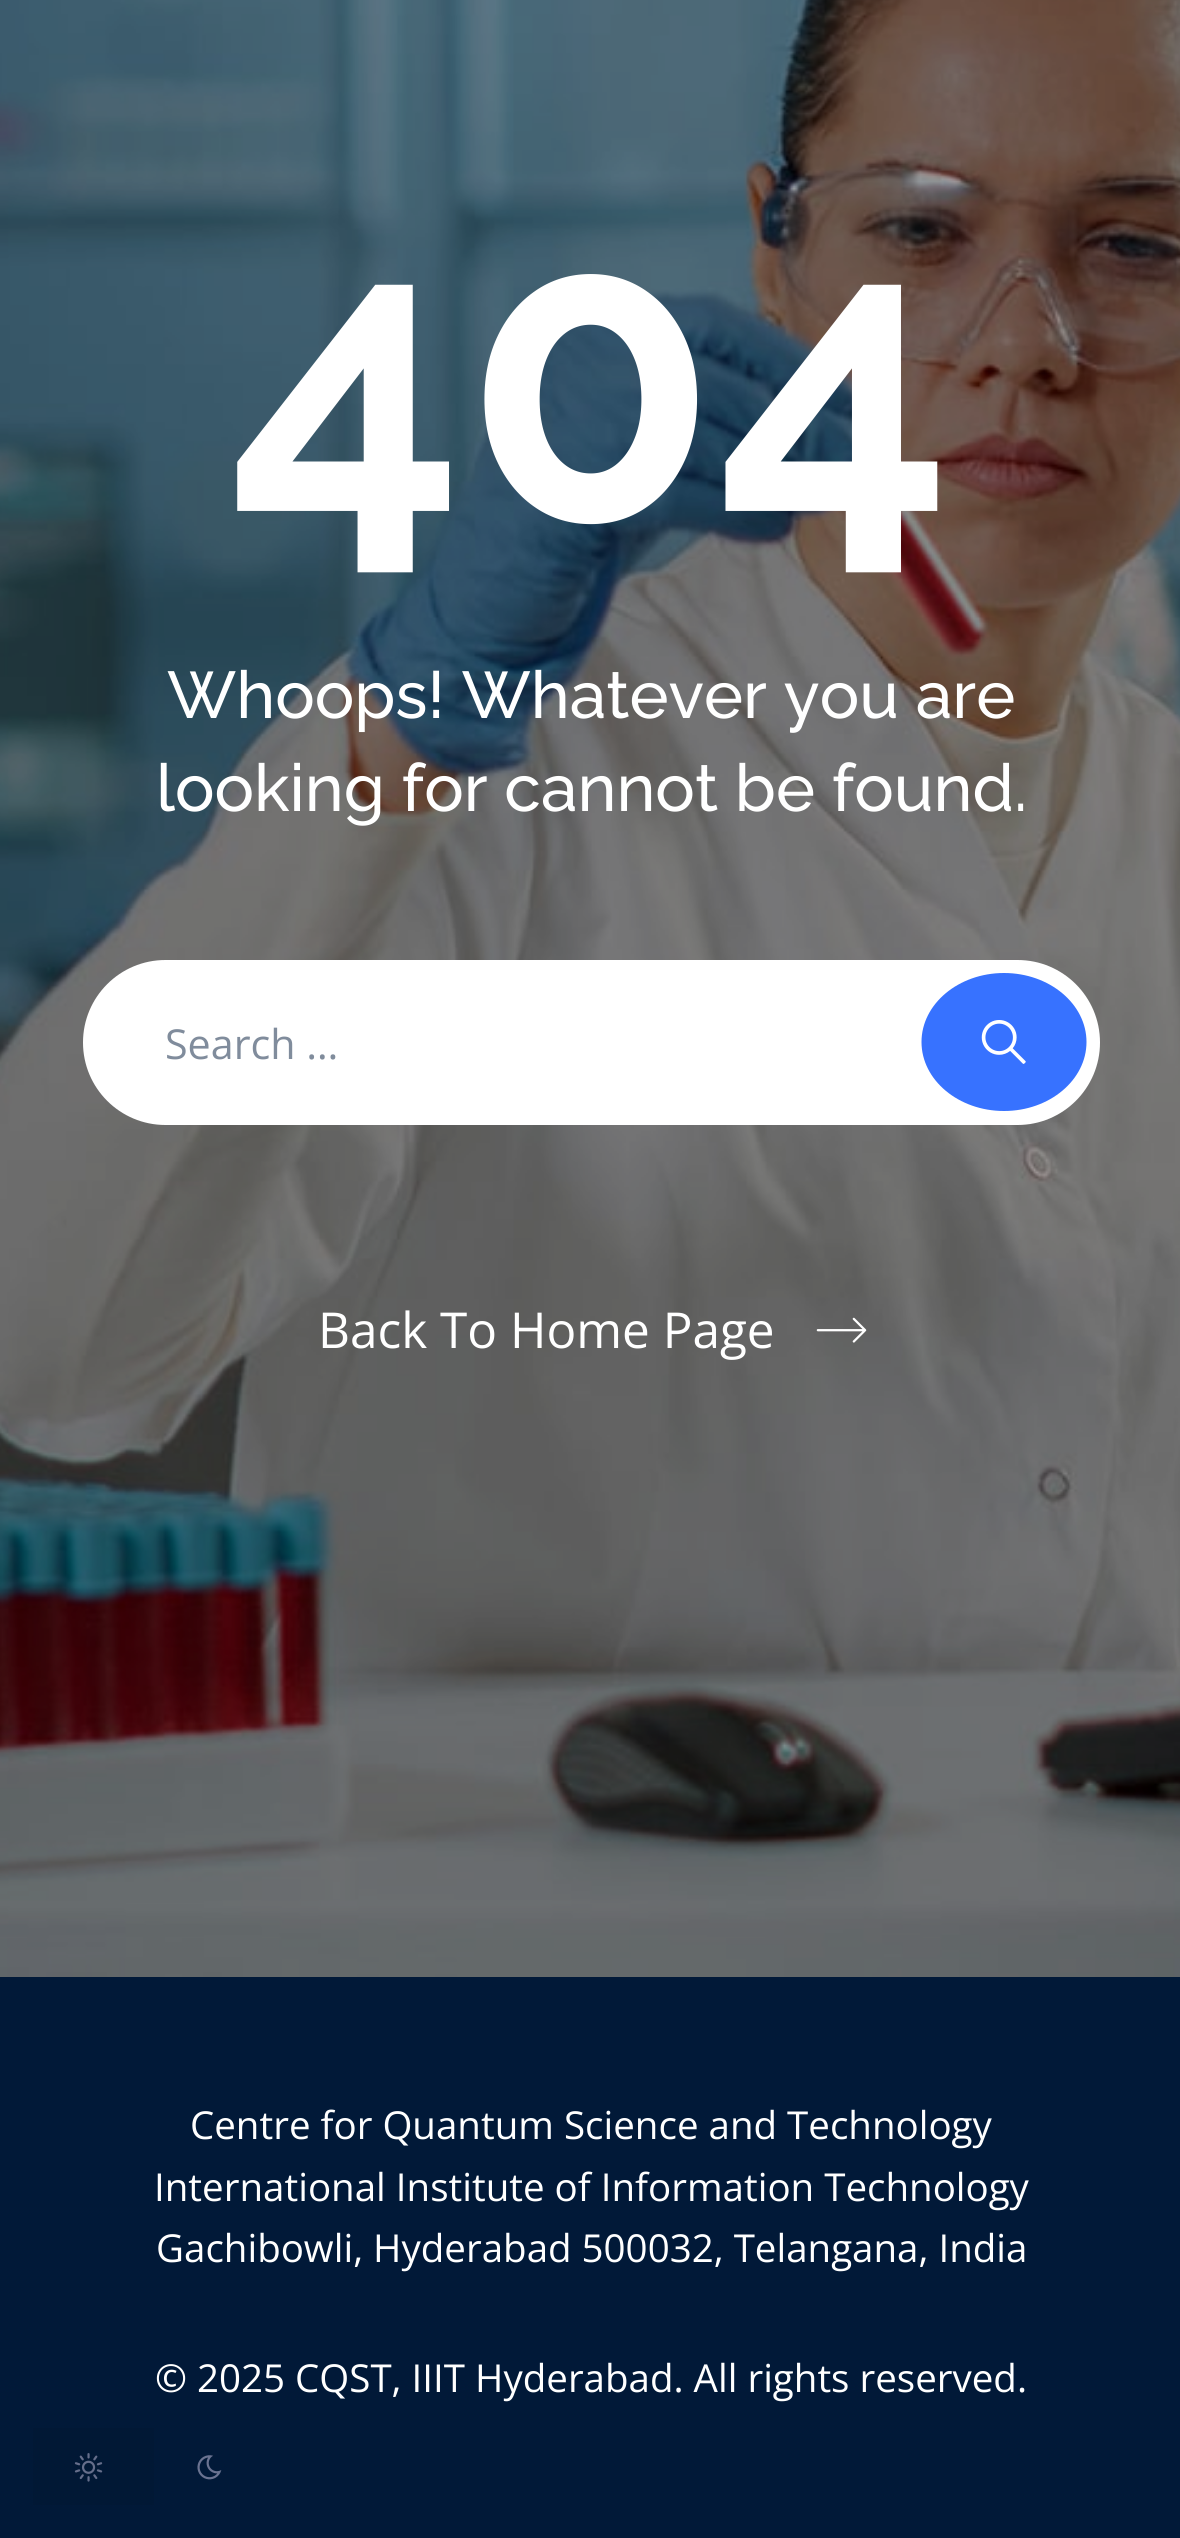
#include <cairo.h>
#include <math.h>
#include <stddef.h>

static cairo_t *c;
static void C(unsigned color){cairo_set_source_rgb(c, (color >> 16) / 255.0, (color >> 8 & 255) / 255.0, (color & 255) / 255.0);}
static void F(const char *family, double size, int italic, int bold){cairo_select_font_face(c, family, italic ? CAIRO_FONT_SLANT_ITALIC : CAIRO_FONT_SLANT_NORMAL,bold ? CAIRO_FONT_WEIGHT_BOLD : CAIRO_FONT_WEIGHT_NORMAL);cairo_set_font_size(c, size);}
static void T(double x, double y, const char *s){cairo_move_to(c, x, y);cairo_show_text(c, s);}
static void R(double x, double y, double w, double h){cairo_rectangle(c, x, y, w, h);cairo_fill(c);}
static void Q(double x, double y, double w, double h, double r){cairo_new_sub_path(c);cairo_arc(c, x + w - r, y + h - r, r, 0, M_PI / 2);cairo_arc(c, x + r, y + h - r, r, M_PI / 2, M_PI);cairo_arc(c, x + r, y + r, r, M_PI, 1.5 * M_PI);cairo_arc(c, x + w - r, y + r, r, 1.5 * M_PI, 2 * M_PI);cairo_close_path(c);}
static void I(const char *path, double x, double y, double w, double h){cairo_surface_t *image = cairo_image_surface_create_from_png(path);cairo_save(c);cairo_set_source_surface(c, image, x, y);cairo_rectangle(c, x, y, w, h);cairo_fill(c);cairo_restore(c);cairo_surface_destroy(image);}
int main(void) {
cairo_surface_t *surface = cairo_image_surface_create(CAIRO_FORMAT_RGB24, 1180, 2538);
c = cairo_create(surface);
cairo_font_options_t *options = cairo_font_options_create();
cairo_font_options_set_hint_metrics(options, CAIRO_HINT_METRICS_OFF);
cairo_font_options_set_hint_style(options, CAIRO_HINT_STYLE_NONE);
cairo_set_font_options(c, options);
cairo_set_miter_limit(c, 4);
C(0xffffff);
cairo_paint(c);
I("1.png",0,0,1180,1977);
F("Raleway",412,0,1);
C(0xffffff);
T(229,520,"404");
F("Raleway Medium",66,0,0);
T(167,718,"Whoops! Whatever you are");
T(156,811,"looking for cannot be found.");
Q(83,960,1017,165,82.5);
cairo_fill(c);
F("Open Sans",41.25,0,0);
C(0x808c9c);
T(165,1059,"Search …");
C(0x3772ff);
cairo_new_path(c);
cairo_move_to(c,1004,973);
cairo_curve_to(c,1049.5,973,1086.5,1004,1086.5,1042);
cairo_curve_to(c,1086.5,1080,1049.5,1111,1004,1111);
cairo_curve_to(c,958.5,1111,921.5,1080,921.5,1042);
cairo_curve_to(c,921.5,1004,958.5,973,1004,973);
cairo_close_path(c);
cairo_fill(c);
I("2.png",981,1020,45,44);
F("Open Sans",49.5,0,0);
C(0xffffff);
T(318,1348,"Back To Home Page");
I("3.png",816,1317,51,26);
C(0x011938);
R(0,1977,1180,561);
F("Open Sans",38.5,0,0);
C(0xffffff);
T(190,2139,"Centre for Quantum Science and Technology");
T(154,2201,"International Institute of Information Technology");
T(156,2262,"Gachibowli, Hyderabad 500032, Telangana, India");
T(155,2392,"© 2025 CQST, IIIT Hyderabad. All rights reserved.");
I("4.png",74,2453,29,29);
cairo_set_source_rgba(c,0,0,0,0.05);
R(33,2428,121,77);
I("5.png",197,2455,25,25);
cairo_surface_write_to_png(surface, "o.png");
cairo_font_options_destroy(options);
cairo_destroy(c);
cairo_surface_destroy(surface);
return 0;
}
